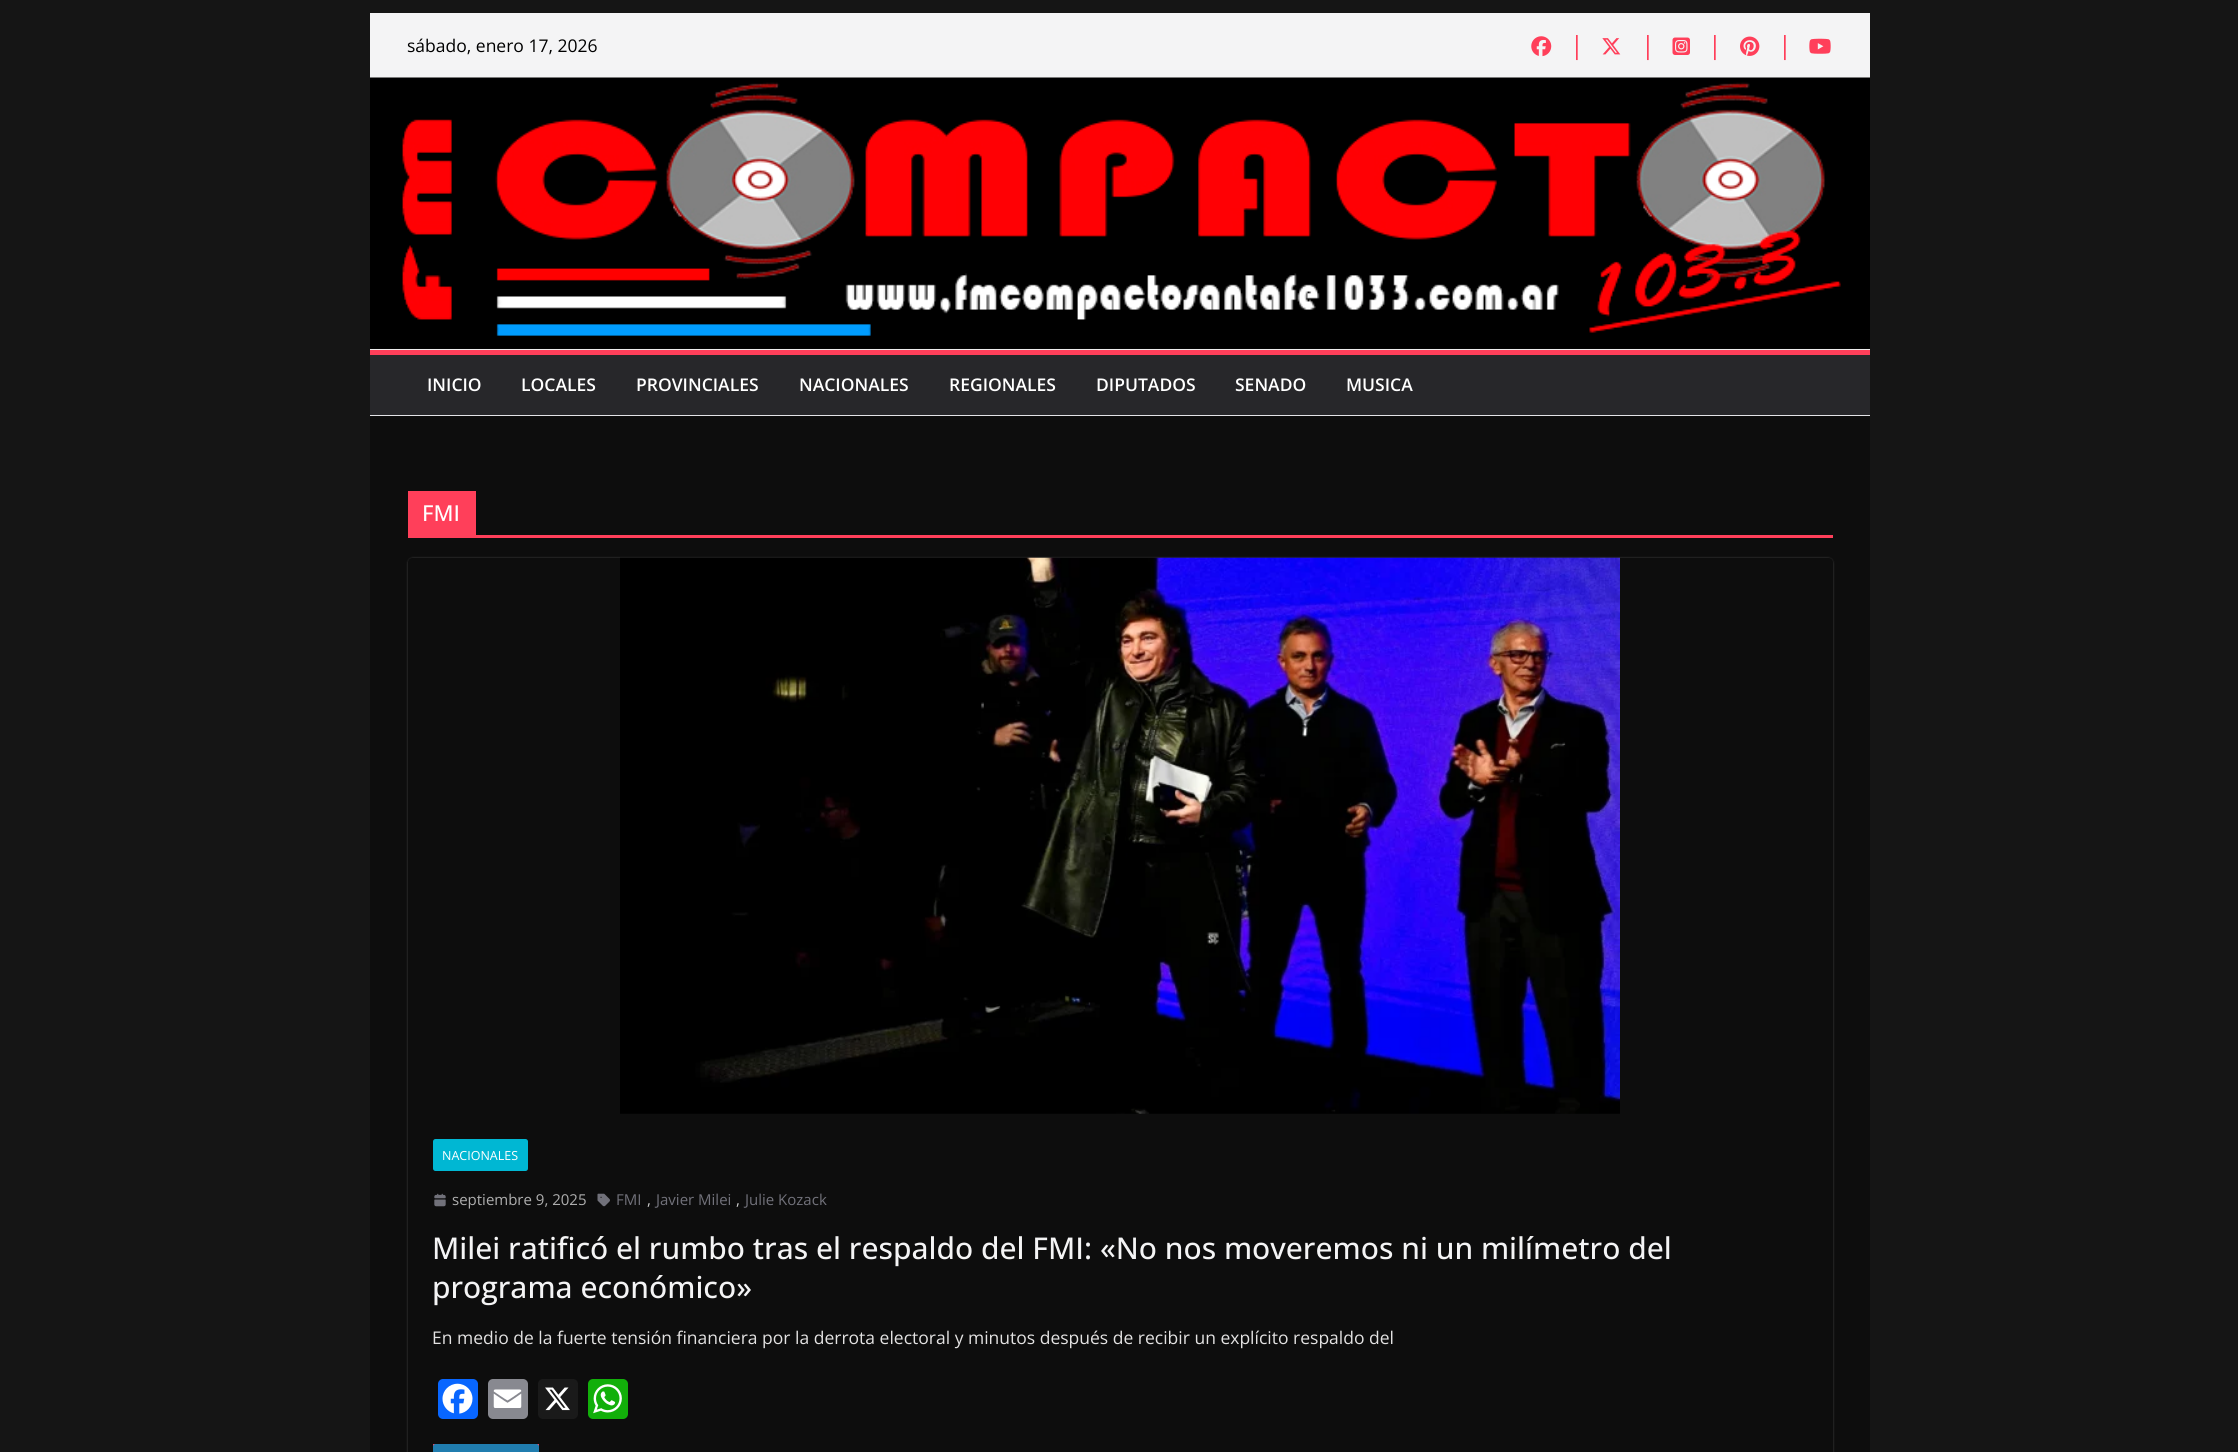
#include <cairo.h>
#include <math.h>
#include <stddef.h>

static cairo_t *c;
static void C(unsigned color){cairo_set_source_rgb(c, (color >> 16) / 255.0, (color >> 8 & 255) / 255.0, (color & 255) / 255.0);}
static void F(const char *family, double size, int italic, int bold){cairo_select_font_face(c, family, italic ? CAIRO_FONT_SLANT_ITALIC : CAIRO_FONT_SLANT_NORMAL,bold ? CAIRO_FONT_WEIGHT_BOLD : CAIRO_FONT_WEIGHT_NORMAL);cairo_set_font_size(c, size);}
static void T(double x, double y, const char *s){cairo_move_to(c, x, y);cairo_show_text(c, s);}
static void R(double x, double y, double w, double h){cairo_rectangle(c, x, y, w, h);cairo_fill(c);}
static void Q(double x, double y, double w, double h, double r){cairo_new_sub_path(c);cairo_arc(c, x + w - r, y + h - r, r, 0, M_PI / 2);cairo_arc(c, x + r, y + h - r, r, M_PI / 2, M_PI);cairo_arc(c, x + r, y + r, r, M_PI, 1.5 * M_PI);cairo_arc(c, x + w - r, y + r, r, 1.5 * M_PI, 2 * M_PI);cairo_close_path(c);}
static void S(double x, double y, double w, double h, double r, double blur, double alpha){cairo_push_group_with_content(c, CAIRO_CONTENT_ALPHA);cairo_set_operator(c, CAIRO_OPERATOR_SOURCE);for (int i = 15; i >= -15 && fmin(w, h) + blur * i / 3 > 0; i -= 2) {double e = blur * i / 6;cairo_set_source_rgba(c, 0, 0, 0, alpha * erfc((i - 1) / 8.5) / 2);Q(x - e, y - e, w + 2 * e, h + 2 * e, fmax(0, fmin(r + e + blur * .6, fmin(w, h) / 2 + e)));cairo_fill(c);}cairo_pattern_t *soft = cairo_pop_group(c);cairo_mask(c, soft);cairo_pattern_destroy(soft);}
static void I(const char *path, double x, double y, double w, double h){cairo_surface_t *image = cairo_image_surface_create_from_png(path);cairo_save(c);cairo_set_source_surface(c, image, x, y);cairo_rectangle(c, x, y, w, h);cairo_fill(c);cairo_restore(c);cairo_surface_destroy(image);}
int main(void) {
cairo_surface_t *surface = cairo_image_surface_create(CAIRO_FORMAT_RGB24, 2238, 1452);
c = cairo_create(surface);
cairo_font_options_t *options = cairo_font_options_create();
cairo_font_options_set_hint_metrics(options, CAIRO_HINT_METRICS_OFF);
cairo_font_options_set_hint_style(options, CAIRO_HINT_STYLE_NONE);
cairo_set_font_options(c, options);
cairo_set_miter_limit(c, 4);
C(0x151515);
cairo_paint(c);
C(0x0d0d0d);
R(370,348,1500,1104);
C(0xe4e4e7);
R(370,415,1500,1);
C(0xf4f4f5);
R(370,13,1500,65);
F("Open Sans",17.5,0,0);
C(0x000000);
T(407,52,"sábado, enero 17, 2026");
I("1.png",1531,36,21,21);
F("Open Sans",25,0,0);
C(0xff3f5a);
T(1570,54,"|");
I("2.png",1602,38,19,17);
T(1641,54,"|");
I("3.png",1672,37,18,18);
T(1708,54,"|");
I("4.png",1740,36,20,20);
T(1778,54,"|");
I("5.png",1809,38,22,16);
I("6.png",370,77,1500,272);
C(0xebebeb);
R(370,349,1500,1);
C(0x27272a);
R(370,355,1500,60);
C(0xff3f5a);
R(370,350,1500,5);
F("Open Sans SemiBold",17.5,0,0);
C(0xffffff);
T(427,391,"INICIO");
T(521,391,"LOCALES");
T(636,391,"PROVINCIALES");
T(799,391,"NACIONALES");
T(949,391,"REGIONALES");
T(1096,391,"DIPUTADOS");
T(1235,391,"SENADO");
T(1346,391,"MUSICA");
C(0xff3f5a);
R(408,535,1425,3);
R(408,491,68,44);
F("Open Sans Medium",22,0,0);
C(0xffffff);
T(422,521,"FMI");
cairo_save(c);
cairo_set_fill_rule(c,CAIRO_FILL_RULE_EVEN_ODD);
cairo_new_path(c);
cairo_move_to(c,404,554);
cairo_line_to(c,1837,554);
cairo_line_to(c,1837,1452);
cairo_line_to(c,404,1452);
cairo_close_path(c);
cairo_move_to(c,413,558);
cairo_line_to(c,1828,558);
cairo_curve_to(c,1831,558,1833,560,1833,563);
cairo_line_to(c,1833,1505);
cairo_curve_to(c,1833,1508,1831,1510,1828,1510);
cairo_line_to(c,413,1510);
cairo_curve_to(c,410,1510,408,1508,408,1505);
cairo_line_to(c,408,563);
cairo_curve_to(c,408,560,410,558,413,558);
cairo_close_path(c);
cairo_clip(c);
C(0xffffff);
S(408,558,1425,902,5,1,.24);
cairo_restore(c);
I("7.png",620,557,1000,557);
C(0x00b7d3);
Q(433,1139,95,32,2.5);
cairo_fill(c);
F("Open Sans",12.5,0,0);
C(0xffffff);
T(442,1160,"NACIONALES");
I("8.png",434,1193,12,14);
F("Open Sans",15,0,0);
C(0xaeaeae);
T(452,1205,"septiembre 9, 2025");
I("9.png",597,1193,13,14);
C(0x71717a);
T(616,1205,"FMI");
C(0xcccccc);
T(647,1205,",");
C(0x71717a);
T(656,1205,"Javier Milei");
C(0xcccccc);
T(736,1205,",");
C(0x71717a);
T(745,1205,"Julie Kozack");
F("Open Sans Medium",30,0,0);
C(0xf4f4f5);
T(432,1259,"Milei ratificó el rumbo tras el respaldo del FMI: «No nos moveremos ni un milímetro del");
T(432,1298,"programa económico»");
F("Open Sans",17.5,0,0);
C(0xe3e2e2);
T(432,1344,"En medio de la fuerte tensión financiera por la derrota electoral y minutos después de recibir un explícito respaldo del");
C(0x0866ff);
Q(438,1379,40,40,5);
cairo_fill(c);
I("10.png",442,1383,31,31);
C(0x888990);
Q(488,1379,40,40,5);
cairo_fill(c);
I("11.png",493,1389,29,19);
C(0x1a1a1a);
Q(538,1379,40,40,5);
cairo_fill(c);
I("12.png",545,1387,25,24);
C(0x12af0a);
Q(588,1379,40,40,5);
cairo_fill(c);
I("13.png",593,1384,29,30);
C(0xff3f5a);
R(433,1444,106,3);
C(0x207daf);
Q(433,1444,106,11,2.5);
cairo_fill(c);
cairo_surface_write_to_png(surface, "o.png");
cairo_font_options_destroy(options);
cairo_destroy(c);
cairo_surface_destroy(surface);
return 0;
}
